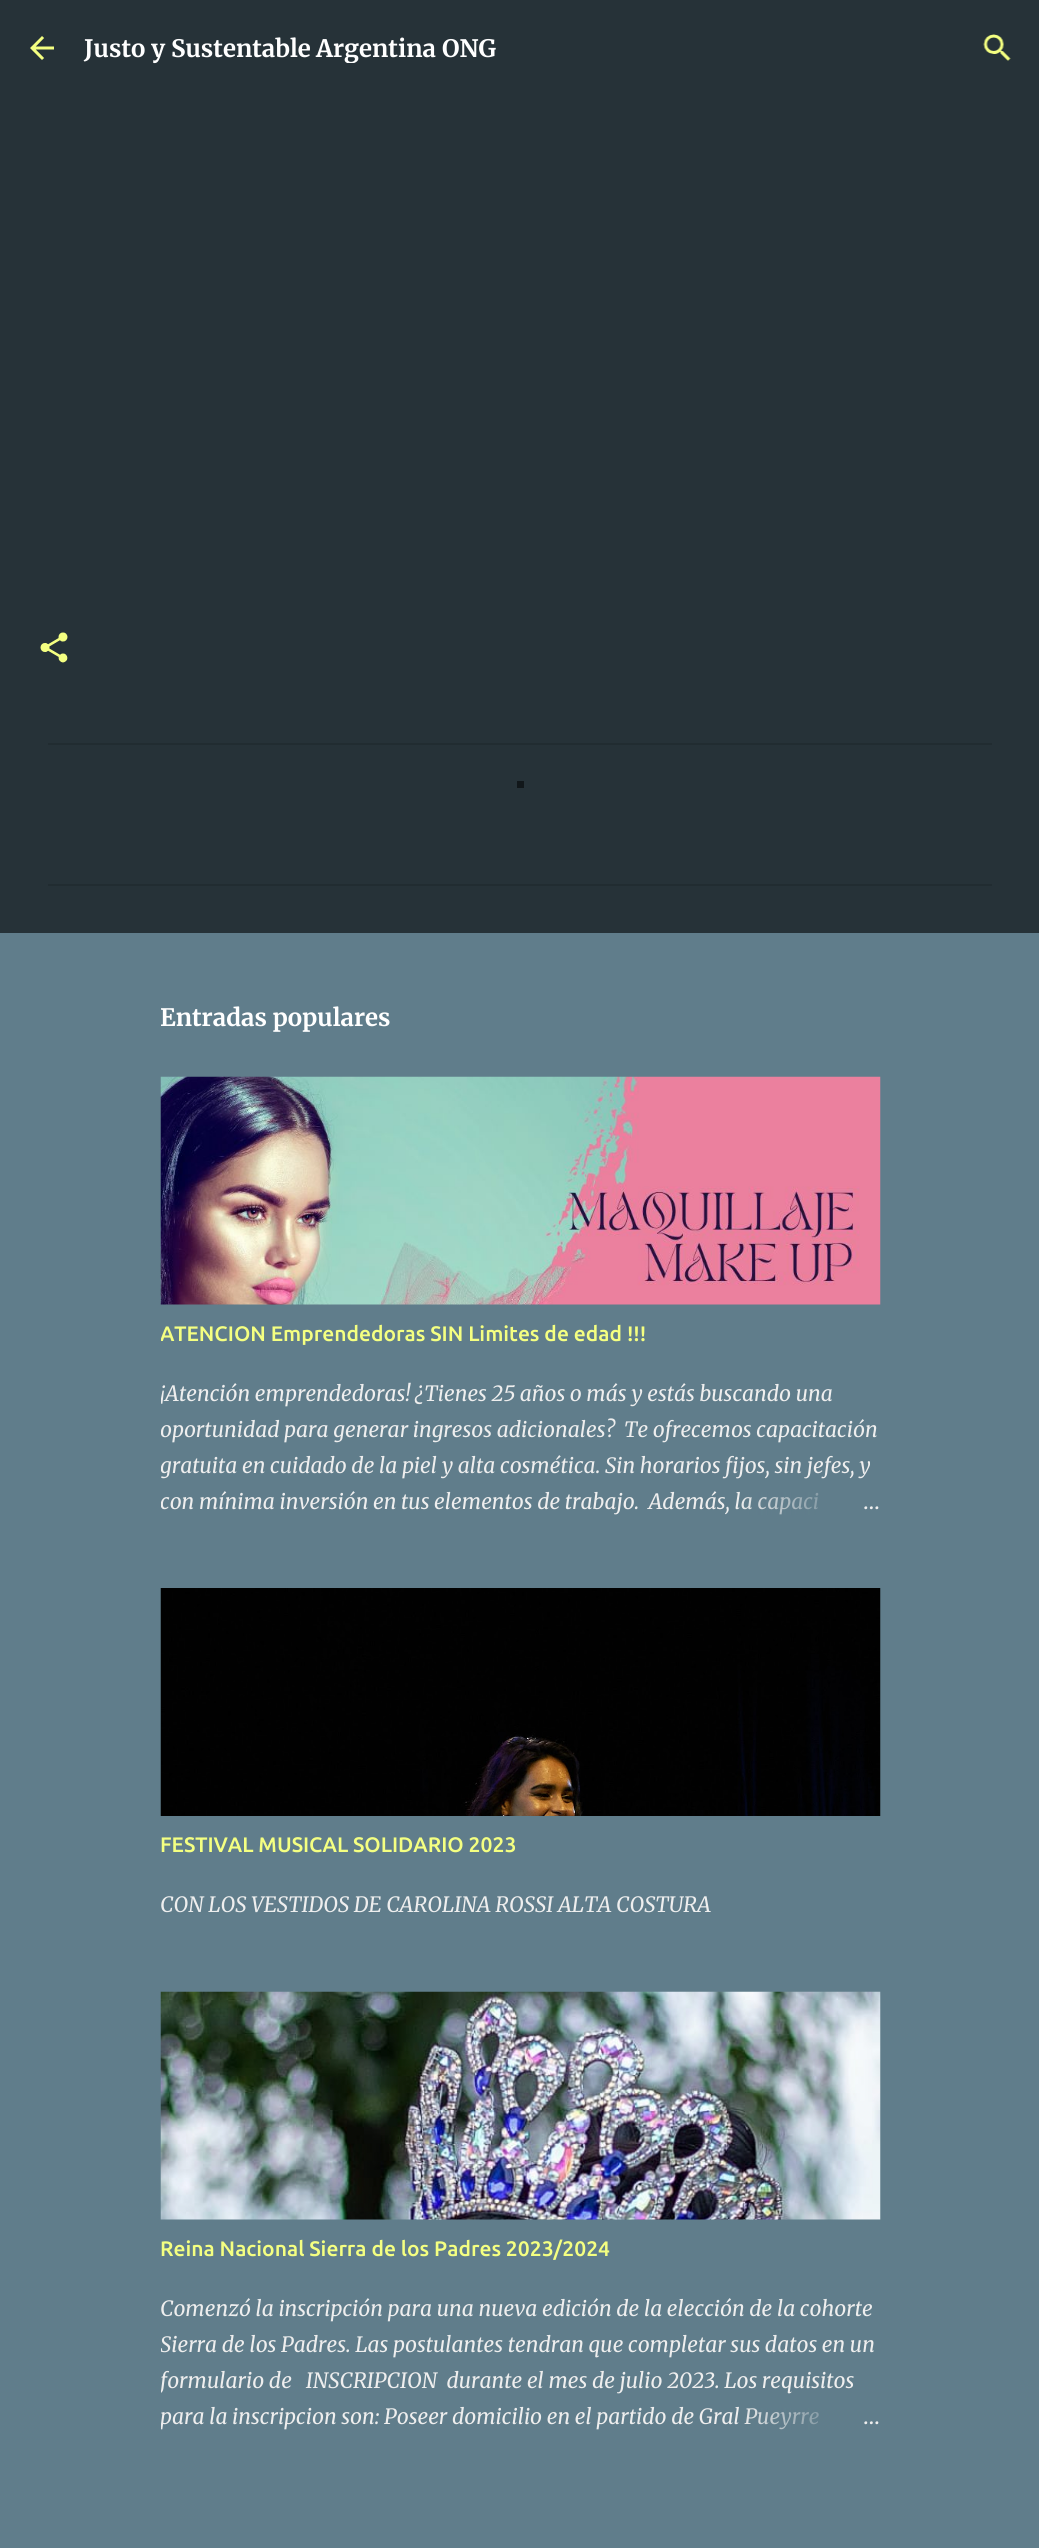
#include <cairo.h>
#include <math.h>
#include <stddef.h>

static cairo_t *c;
static void C(unsigned color){cairo_set_source_rgb(c, (color >> 16) / 255.0, (color >> 8 & 255) / 255.0, (color & 255) / 255.0);}
static void F(const char *family, double size, int italic, int bold){cairo_select_font_face(c, family, italic ? CAIRO_FONT_SLANT_ITALIC : CAIRO_FONT_SLANT_NORMAL,bold ? CAIRO_FONT_WEIGHT_BOLD : CAIRO_FONT_WEIGHT_NORMAL);cairo_set_font_size(c, size);}
static void T(double x, double y, const char *s){cairo_move_to(c, x, y);cairo_show_text(c, s);}
static void R(double x, double y, double w, double h){cairo_rectangle(c, x, y, w, h);cairo_fill(c);}
static void I(const char *path, double x, double y, double w, double h){cairo_surface_t *image = cairo_image_surface_create_from_png(path);cairo_save(c);cairo_set_source_surface(c, image, x, y);cairo_rectangle(c, x, y, w, h);cairo_fill(c);cairo_restore(c);cairo_surface_destroy(image);}
int main(void) {
cairo_surface_t *surface = cairo_image_surface_create(CAIRO_FORMAT_RGB24, 1039, 2548);
c = cairo_create(surface);
cairo_font_options_t *options = cairo_font_options_create();
cairo_font_options_set_hint_metrics(options, CAIRO_HINT_METRICS_OFF);
cairo_font_options_set_hint_style(options, CAIRO_HINT_STYLE_NONE);
cairo_set_font_options(c, options);
cairo_set_miter_limit(c, 4);
cairo_pattern_t *gradient;
C(0x607d8b);
cairo_paint(c);
C(0x263238);
R(0,0,1039,933);
I("1.png",30,36,24,24);
F("Merriweather",24,0,1);
C(0xffffff);
T(84,57,"Justo y Sustentable");
cairo_save(c);
cairo_rectangle(c,84,33,872,30);
cairo_clip(c);
T(316,57,"Argentina");
cairo_restore(c);
T(442,57,"ONG");
I("2.png",983,34,28,27);
I("3.png",40,632,28,31);
C(0x212c31);
R(48,743,944,2);
R(48,884,944,2);
cairo_save(c);
cairo_rectangle(c,161,980,720,1522);
cairo_clip(c);
C(0xffffff);
T(160,1026,"Entradas populares");
cairo_restore(c);
I("4.png",160,1076,721,229);
cairo_save(c);
cairo_rectangle(c,161,980,720,1522);
cairo_clip(c);
F("Ubuntu Medium",21,0,0);
C(0xf4ff81);
T(160,1341,"ATENCION Emprendedoras SIN Limites de edad !!!");
cairo_restore(c);
cairo_save(c);
cairo_rectangle(c,161,1376,720,144);
cairo_clip(c);
F("Merriweather",21,1,0);
C(0xeeeeee);
T(160,1401,"¡Atención emprendedoras! ¿Tienes 25 años o más y estás buscando una");
T(160,1437,"oportunidad para generar ingresos adicionales?  Te ofrecemos capacitación");
T(160,1473,"gratuita en cuidado de la piel y alta cosmética.");
cairo_restore(c);
F("Merriweather",21,1,0);
C(0xeeeeee);
T(605,1473,"Sin horarios fijos, sin jefes, y");
cairo_save(c);
cairo_rectangle(c,161,1376,720,144);
cairo_clip(c);
T(160,1509,"con mínima inversión en tus elementos de trabajo.  Además, la capaci");
cairo_restore(c);
gradient = cairo_pattern_create_linear(881,1502,737,1502);
cairo_pattern_add_color_stop_rgba(gradient,0,0.376,0.49,0.545,1);
cairo_pattern_add_color_stop_rgba(gradient,.2,0.376,0.49,0.545,1);
cairo_pattern_add_color_stop_rgba(gradient,1,0.376,0.49,0.545,0);
cairo_set_source(c,gradient);
cairo_pattern_destroy(gradient);
R(739,1492,80,23);
F("Merriweather",21,0,0);
C(0xeeeeee);
T(863,1509,"…");
I("5.png",160,1588,721,228);
F("Ubuntu Medium",21,0,0);
C(0xf4ff81);
T(160,1852,"FESTIVAL MUSICAL SOLIDARIO 2023");
F("Merriweather",21,1,0);
C(0xeeeeee);
T(160,1912,"CON LOS VESTIDOS DE CAROLINA ROSSI ALTA COSTURA");
I("6.png",160,1991,721,229);
F("Ubuntu Medium",21,0,0);
C(0xf4ff81);
T(160,2256,"Reina Nacional Sierra de los Padres 2023/2024");
F("Merriweather",21,1,0);
C(0xeeeeee);
T(160,2316,"Comenzó la inscripción para una nueva edición de la elección de la cohorte");
cairo_save(c);
cairo_rectangle(c,161,2291,720,144);
cairo_clip(c);
T(160,2352,"Sierra de los Padres. Las postulantes tendran que completar sus datos en un");
T(160,2388,"formulario de   INSCRIPCION  durante el mes de julio 2023. Los requisitos");
T(160,2424,"para la inscripcion son: Poseer domicilio en el partido de Gral Pueyrre");
cairo_restore(c);
gradient = cairo_pattern_create_linear(881,2417,737,2417);
cairo_pattern_add_color_stop_rgba(gradient,0,0.376,0.49,0.545,1);
cairo_pattern_add_color_stop_rgba(gradient,.2,0.376,0.49,0.545,1);
cairo_pattern_add_color_stop_rgba(gradient,1,0.376,0.49,0.545,0);
cairo_set_source(c,gradient);
cairo_pattern_destroy(gradient);
R(744,2408,75,22);
F("Merriweather",21,0,0);
C(0xeeeeee);
T(863,2424,"…");
C(0x11171a);
R(517,781,7,7);
cairo_surface_write_to_png(surface, "o.png");
cairo_font_options_destroy(options);
cairo_destroy(c);
cairo_surface_destroy(surface);
return 0;
}
